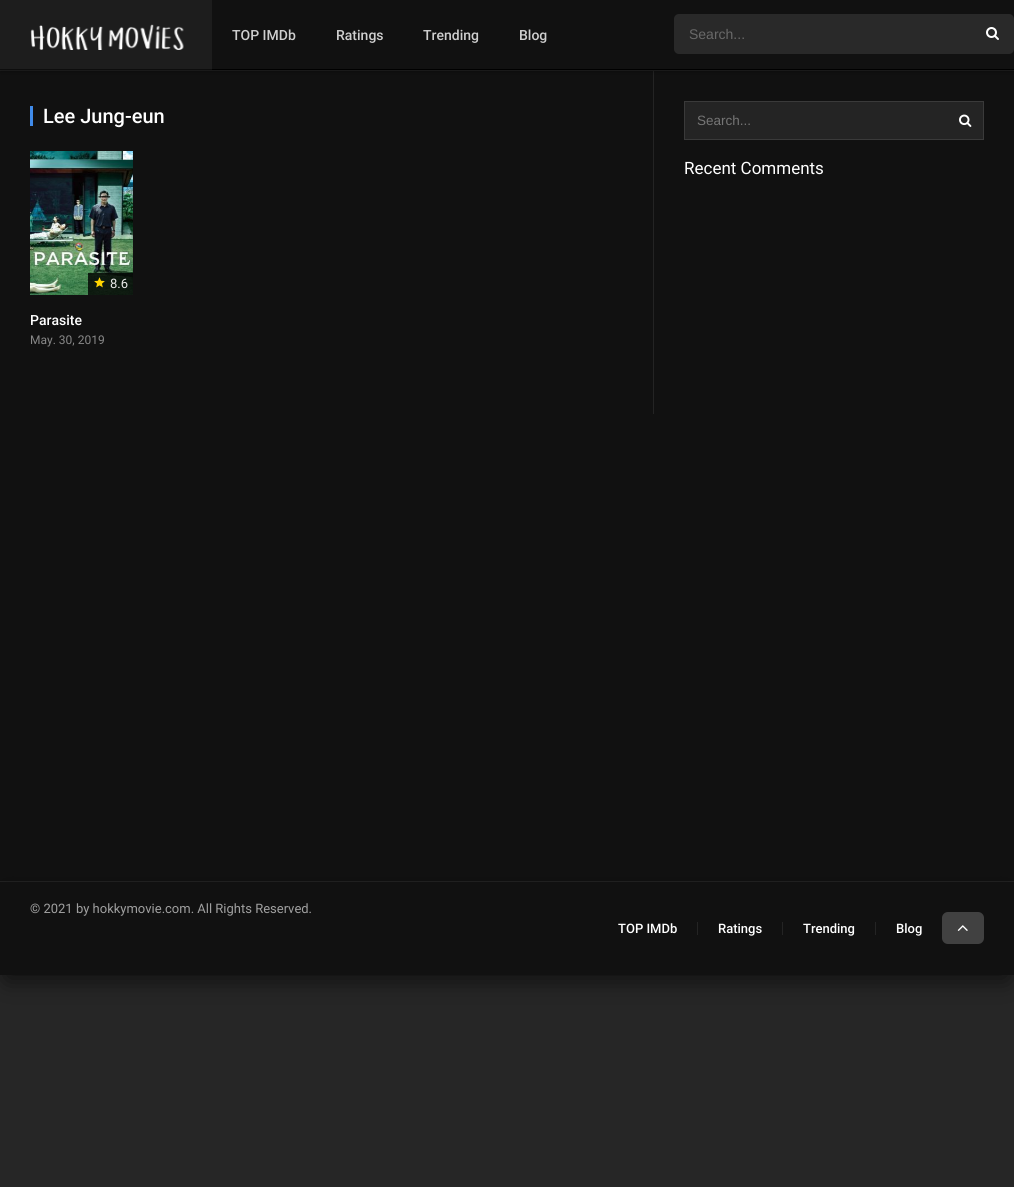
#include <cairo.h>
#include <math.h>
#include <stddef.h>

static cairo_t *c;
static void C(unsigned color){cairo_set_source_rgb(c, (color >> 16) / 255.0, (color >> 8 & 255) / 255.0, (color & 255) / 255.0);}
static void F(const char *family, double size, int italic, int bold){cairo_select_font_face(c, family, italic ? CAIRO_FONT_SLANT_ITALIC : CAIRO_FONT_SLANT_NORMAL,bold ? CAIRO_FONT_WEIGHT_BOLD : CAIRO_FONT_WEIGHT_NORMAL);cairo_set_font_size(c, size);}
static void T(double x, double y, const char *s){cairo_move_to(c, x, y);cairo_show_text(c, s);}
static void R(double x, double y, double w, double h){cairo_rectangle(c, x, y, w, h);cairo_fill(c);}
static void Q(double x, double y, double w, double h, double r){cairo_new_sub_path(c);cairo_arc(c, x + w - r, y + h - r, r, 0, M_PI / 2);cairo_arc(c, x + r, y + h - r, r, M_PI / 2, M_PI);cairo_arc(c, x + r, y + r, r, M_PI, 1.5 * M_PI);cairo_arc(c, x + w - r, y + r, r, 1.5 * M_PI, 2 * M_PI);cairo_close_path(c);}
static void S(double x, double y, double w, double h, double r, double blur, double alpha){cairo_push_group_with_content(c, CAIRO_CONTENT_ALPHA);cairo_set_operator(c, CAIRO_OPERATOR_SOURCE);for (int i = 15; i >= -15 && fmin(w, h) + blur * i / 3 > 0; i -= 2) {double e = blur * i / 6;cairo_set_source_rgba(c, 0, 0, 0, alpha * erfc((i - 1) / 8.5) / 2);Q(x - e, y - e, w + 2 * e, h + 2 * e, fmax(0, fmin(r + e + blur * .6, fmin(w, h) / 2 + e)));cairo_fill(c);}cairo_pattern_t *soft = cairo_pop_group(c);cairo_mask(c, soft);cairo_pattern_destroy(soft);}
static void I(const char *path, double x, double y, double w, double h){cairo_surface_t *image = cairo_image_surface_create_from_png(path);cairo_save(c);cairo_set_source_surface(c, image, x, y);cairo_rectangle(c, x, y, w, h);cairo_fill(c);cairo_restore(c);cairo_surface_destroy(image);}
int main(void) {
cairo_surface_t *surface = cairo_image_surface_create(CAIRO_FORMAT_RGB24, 1014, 1187);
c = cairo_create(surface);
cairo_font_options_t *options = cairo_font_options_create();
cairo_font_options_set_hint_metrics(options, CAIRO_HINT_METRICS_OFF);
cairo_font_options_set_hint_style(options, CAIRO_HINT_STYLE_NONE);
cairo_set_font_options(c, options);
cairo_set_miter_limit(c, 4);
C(0x262626);
cairo_paint(c);
C(0x111111);
R(0,71,1014,810);
C(0x222222);
R(0,70,1014,1);
C(0x242424);
R(653,71,1,343);
C(0x000000);
S(0,1,1014,70,0,2.5,.4);
C(0x111111);
R(212,0,802,69);
C(0x1d1d1d);
R(0,0,212,69);
C(0x000000);
R(212,69,802,1);
C(0x0d0d0d);
R(0,69,212,1);
I("1.png",30,24,154,26);
F("Roboto Medium",14,0,0);
C(0xcfcfcf);
T(232,40,"TOP IMDb");
T(336,40,"Ratings");
T(423,40,"Trending");
T(519,40,"Blog");
C(0x292929);
Q(674,14,340,40,5);
cairo_fill(c);
F("Liberation Sans",14,0,0);
C(0x696969);
T(689,39,"Search...");
I("2.png",986,27,13,13);
C(0x222222);
R(0,881,1014,1);
C(0x408bea);
R(30,106,3,20);
F("Roboto Medium",20,0,0);
C(0xffffff);
T(43,123,"Lee Jung-eun");
I("3.png",30,151,103,144);
cairo_set_source_rgba(c,0,0,0,0.8);
R(88,273,45,22);
I("4.png",94,277,11,11);
F("Roboto",13,0,0);
C(0xe7e8e7);
T(110,288,"8.6");
F("Roboto Medium",14,0,0);
C(0xffffff);
T(30,325,"Parasite");
F("Roboto",12,0,0);
C(0x888888);
T(30,344,"May. 30, 2019");
C(0x242424);
cairo_rectangle(c,684.5,101.5,299,38);
cairo_fill_preserve(c);
C(0x3a3a3a);
cairo_set_line_width(c,1);
cairo_stroke(c);
F("Liberation Sans",13.5,0,0);
C(0x757575);
T(697,125,"Search...");
I("5.png",959,114,13,13);
F("Roboto",17,0,0);
C(0xffffff);
T(684,174,"Recent Comments");
C(0x000000);
S(7,899,1000,79,0,12.5,.7);
C(0x111111);
R(0,882,1014,93);
F("Roboto",13,0,0);
C(0xa0a0a0);
T(30,913,"© 2021 by hokkymovie.com. All Rights Reserved.");
F("Roboto Medium",13,0,0);
C(0xffffff);
T(618,933,"TOP IMDb");
C(0x242424);
R(697,922,1,13);
C(0xffffff);
T(718,933,"Ratings");
C(0x242424);
R(782,922,1,13);
C(0xffffff);
T(803,933,"Trending");
C(0x242424);
R(875,922,1,13);
C(0xffffff);
T(896,933,"Blog");
C(0x414141);
Q(942,912,42,32,6);
cairo_fill(c);
I("6.png",957,925,11,6);
cairo_surface_write_to_png(surface, "o.png");
cairo_font_options_destroy(options);
cairo_destroy(c);
cairo_surface_destroy(surface);
return 0;
}
